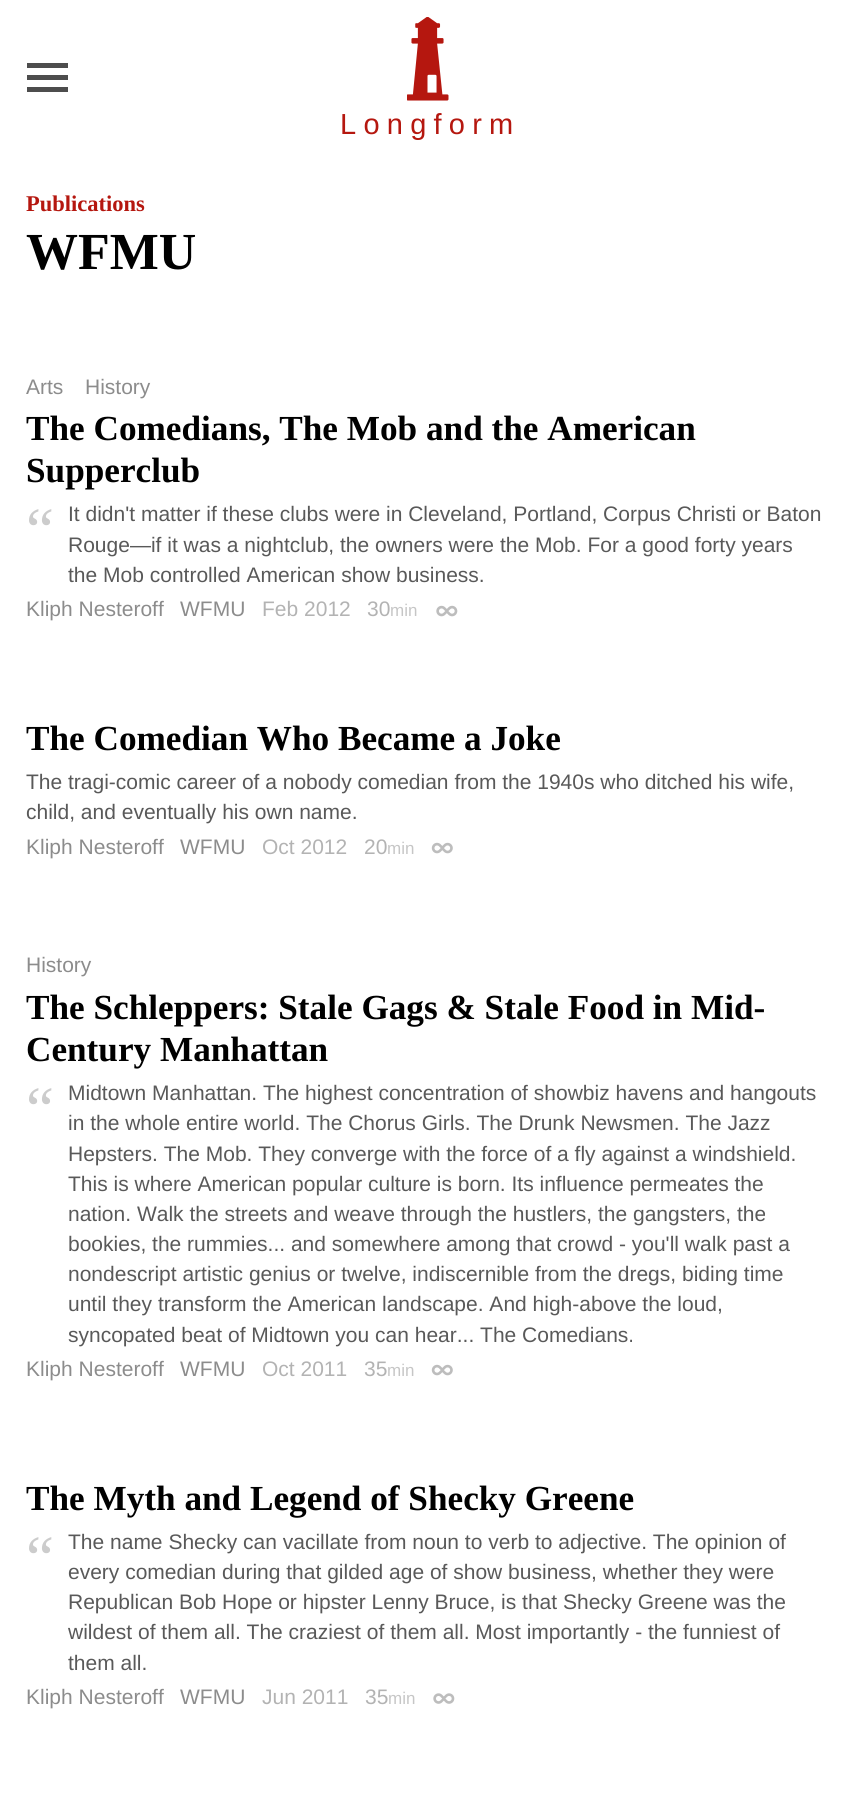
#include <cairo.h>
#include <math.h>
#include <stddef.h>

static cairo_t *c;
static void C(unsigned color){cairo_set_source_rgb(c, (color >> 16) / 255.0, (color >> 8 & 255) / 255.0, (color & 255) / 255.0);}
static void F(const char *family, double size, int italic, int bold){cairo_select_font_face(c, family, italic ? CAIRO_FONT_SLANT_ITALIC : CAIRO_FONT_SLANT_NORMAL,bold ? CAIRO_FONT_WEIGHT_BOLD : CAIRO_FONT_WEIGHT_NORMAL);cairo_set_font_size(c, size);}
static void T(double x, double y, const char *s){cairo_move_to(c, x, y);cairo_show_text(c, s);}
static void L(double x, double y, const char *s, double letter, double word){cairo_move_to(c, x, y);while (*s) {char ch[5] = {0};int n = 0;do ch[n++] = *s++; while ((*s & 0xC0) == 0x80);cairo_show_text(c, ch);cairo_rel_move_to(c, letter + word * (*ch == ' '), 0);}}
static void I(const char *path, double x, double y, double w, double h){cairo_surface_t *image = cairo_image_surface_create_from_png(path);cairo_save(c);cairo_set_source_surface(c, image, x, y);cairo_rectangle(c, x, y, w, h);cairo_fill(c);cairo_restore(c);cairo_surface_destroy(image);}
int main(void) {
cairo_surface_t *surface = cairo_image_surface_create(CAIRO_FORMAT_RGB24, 853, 1815);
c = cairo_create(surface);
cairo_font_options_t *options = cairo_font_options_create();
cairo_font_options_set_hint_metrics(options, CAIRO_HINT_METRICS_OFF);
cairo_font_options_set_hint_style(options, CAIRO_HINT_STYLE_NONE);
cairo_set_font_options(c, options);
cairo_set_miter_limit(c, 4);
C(0xffffff);
cairo_paint(c);
cairo_save(c);
cairo_rectangle(c,27,57,41,41);
cairo_clip(c);
C(0x4d4d4d);
cairo_set_fill_rule(c,CAIRO_FILL_RULE_EVEN_ODD);
cairo_new_path(c);
cairo_move_to(c,27,63);
cairo_line_to(c,68,63);
cairo_line_to(c,68,68);
cairo_line_to(c,27,68);
cairo_close_path(c);
cairo_move_to(c,27,75);
cairo_line_to(c,68,75);
cairo_line_to(c,68,80);
cairo_line_to(c,27,80);
cairo_close_path(c);
cairo_move_to(c,27,87);
cairo_line_to(c,68,87);
cairo_line_to(c,68,92);
cairo_line_to(c,27,92);
cairo_close_path(c);
cairo_move_to(c,88,74);
cairo_line_to(c,75,61);
cairo_line_to(c,72,65);
cairo_line_to(c,85,77);
cairo_line_to(c,72,90);
cairo_line_to(c,75,93);
cairo_line_to(c,88,80);
cairo_line_to(c,100,93);
cairo_line_to(c,104,90);
cairo_line_to(c,91,77);
cairo_line_to(c,104,65);
cairo_line_to(c,100,61);
cairo_close_path(c);
cairo_fill(c);
cairo_restore(c);
I("1.png",407,17,42,84);
F("Liberation Sans",29,0,0);
C(0xb5170f);
L(340,134,"Longfor",7.25,0);
T(489,134,"m");
F("Liberation Serif",22.5,0,1);
T(26,211,"Publications");
F("Liberation Serif",52,0,1);
C(0x000000);
T(26,269,"WFMU");
F("Liberation Sans",21,0,0);
C(0x8c8c8c);
T(26,394,"Arts");
T(85,394,"History");
F("Liberation Serif",35.2,0,1);
C(0x000000);
T(26,440,"The Comedians, The Mob and the American");
T(26,482,"Supperclub");
F("Liberation Serif",63,0,0);
C(0xcccccc);
T(26,551,"“");
F("Liberation Sans",21,0,0);
C(0x595959);
T(68,521,"It didn't matter if these clubs were in Cleveland, Portland, Corpus Christi or Baton");
T(68,552,"Rouge—if it was a nightclub, the owners were the Mob. For a good forty years");
T(68,582,"the Mob controlled American show business.");
C(0x8c8c8c);
T(26,616,"Kliph Nesteroff");
T(180,616,"WFMU");
C(0xb3b3b3);
T(262,616,"Feb 2012");
T(367,616,"30");
F("Liberation Sans",17,0,0);
C(0xc6c6c6);
T(390,616,"min");
I("2.png",436,605,22,12);
F("Liberation Serif",35.2,0,1);
C(0x000000);
T(26,750,"The Comedian Who Became a Joke");
F("Liberation Sans",21,0,0);
C(0x595959);
T(26,789,"The tragi-comic career of a nobody comedian from the 1940s who ditched his wife,");
T(26,819,"child, and eventually his own name.");
C(0x8c8c8c);
T(26,854,"Kliph Nesteroff");
T(180,854,"WFMU");
C(0xb3b3b3);
T(262,854,"Oct 2012");
T(364,854,"20");
F("Liberation Sans",17,0,0);
C(0xc6c6c6);
T(387,854,"min");
I("3.png",431,842,22,12);
F("Liberation Sans",21,0,0);
C(0x8c8c8c);
T(26,972,"History");
F("Liberation Serif",35.2,0,1);
C(0x000000);
T(26,1019,"The Schleppers: Stale Gags & Stale Food in Mid-");
T(26,1061,"Century Manhattan");
F("Liberation Serif",63,0,0);
C(0xcccccc);
T(26,1130,"“");
F("Liberation Sans",21,0,0);
C(0x595959);
T(68,1100,"Midtown Manhattan. The highest concentration of showbiz havens and hangouts");
T(68,1130,"in the whole entire world. The Chorus Girls. The Drunk Newsmen. The Jazz");
T(68,1161,"Hepsters. The Mob. They converge with the force of a fly against a windshield.");
T(68,1191,"This is where American popular culture is born. Its influence permeates the");
T(68,1221,"nation. Walk the streets and weave through the hustlers, the gangsters, the");
T(68,1251,"bookies, the rummies... and somewhere among that crowd - you'll walk past a");
T(68,1281,"nondescript artistic genius or twelve, indiscernible from the dregs, biding time");
T(68,1311,"until they transform the American landscape. And high-above the loud,");
T(68,1342,"syncopated beat of Midtown you can hear... The Comedians.");
C(0x8c8c8c);
T(26,1376,"Kliph Nesteroff");
T(180,1376,"WFMU");
C(0xb3b3b3);
T(262,1376,"Oct 2011");
T(364,1376,"35");
F("Liberation Sans",17,0,0);
C(0xc6c6c6);
T(387,1376,"min");
I("3.png",431,1364,22,12);
F("Liberation Serif",35.2,0,1);
C(0x000000);
T(26,1510,"The Myth and Legend of Shecky Greene");
F("Liberation Serif",63,0,0);
C(0xcccccc);
T(26,1579,"“");
F("Liberation Sans",21,0,0);
C(0x595959);
T(68,1549,"The name Shecky can vacillate from noun to verb to adjective. The opinion of");
T(68,1579,"every comedian during that gilded age of show business, whether they were");
T(68,1609,"Republican Bob Hope or hipster Lenny Bruce, is that Shecky Greene was the");
T(68,1639,"wildest of them all. The craziest of them all. Most importantly - the funniest of");
T(68,1670,"them all.");
C(0x8c8c8c);
T(26,1704,"Kliph Nesteroff");
T(180,1704,"WFMU");
C(0xb3b3b3);
T(262,1704,"Jun 2011");
T(365,1704,"35");
F("Liberation Sans",17,0,0);
C(0xc6c6c6);
T(388,1704,"min");
I("4.png",433,1693,22,11);
cairo_surface_write_to_png(surface, "o.png");
cairo_font_options_destroy(options);
cairo_destroy(c);
cairo_surface_destroy(surface);
return 0;
}
